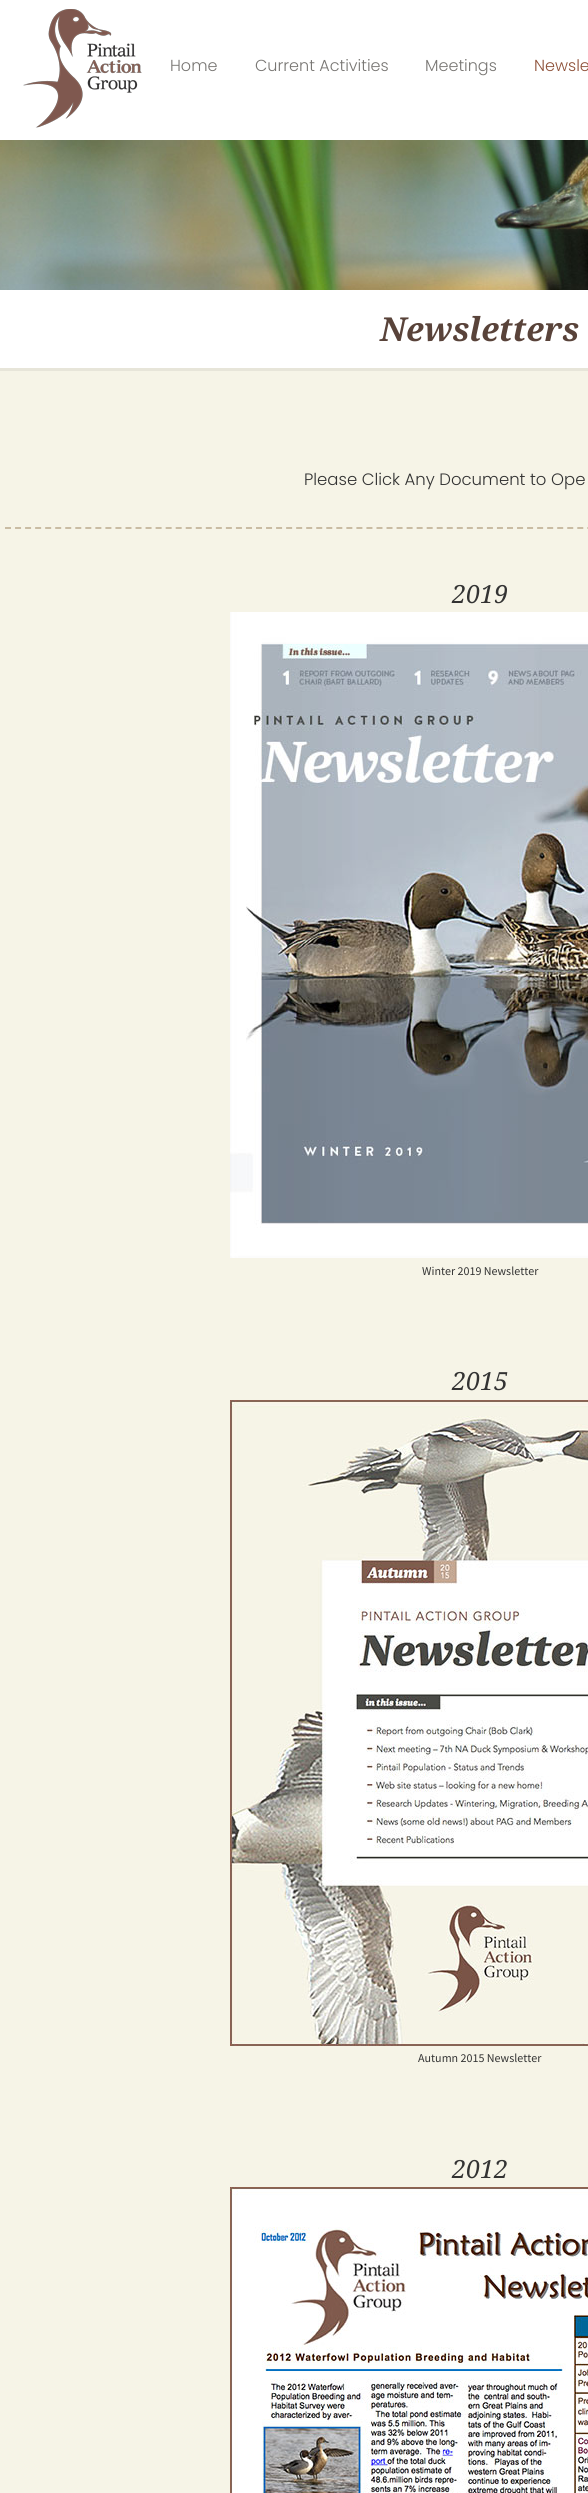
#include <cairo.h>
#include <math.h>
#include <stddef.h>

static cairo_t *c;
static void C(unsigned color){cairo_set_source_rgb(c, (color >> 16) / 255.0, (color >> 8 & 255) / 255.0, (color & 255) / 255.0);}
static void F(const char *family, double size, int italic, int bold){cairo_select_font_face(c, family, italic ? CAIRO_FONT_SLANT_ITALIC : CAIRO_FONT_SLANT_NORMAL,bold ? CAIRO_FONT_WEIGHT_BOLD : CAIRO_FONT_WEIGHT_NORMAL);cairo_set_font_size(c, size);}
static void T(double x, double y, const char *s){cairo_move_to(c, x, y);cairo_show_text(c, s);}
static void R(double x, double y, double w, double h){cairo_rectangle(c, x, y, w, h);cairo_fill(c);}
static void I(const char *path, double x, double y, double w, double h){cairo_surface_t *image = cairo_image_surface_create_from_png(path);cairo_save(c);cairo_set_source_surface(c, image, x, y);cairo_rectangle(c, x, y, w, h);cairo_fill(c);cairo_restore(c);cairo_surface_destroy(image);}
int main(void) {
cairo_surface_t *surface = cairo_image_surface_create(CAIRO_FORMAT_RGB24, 588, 2493);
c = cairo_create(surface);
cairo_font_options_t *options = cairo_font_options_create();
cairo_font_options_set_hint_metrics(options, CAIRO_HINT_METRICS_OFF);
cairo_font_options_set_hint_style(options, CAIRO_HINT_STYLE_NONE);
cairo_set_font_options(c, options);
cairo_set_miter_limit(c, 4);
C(0xffffff);
cairo_paint(c);
I("1.png",23,9,119,119);
F("Poppins Light",16,0,0);
C(0x787673);
T(170,71,"Home");
T(255,71,"Current Activities");
T(425,71,"Meetings");
C(0x8e5139);
T(534,71,"Newsle");
I("2.png",0,140,588,150);
F("Noto Serif",33,1,1);
C(0x59433a);
T(380,341,"Newsletters");
C(0xf6f4e7);
R(0,371,588,2122);
C(0xe7e5d9);
R(0,368,588,3);
cairo_new_path(c);
cairo_move_to(c,5,528);
cairo_line_to(c,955,528);
C(0xc9bca3);
cairo_set_dash(c,(double[]){6,4.04},2,0);
cairo_stroke(c);
F("Poppins Light",16.5,0,0);
C(0x333333);
T(304,485,"Please Click Any Document to Ope");
F("Noto Serif",25,1,0);
T(452,603,"2019");
I("3.png",230,612,358,646);
F("Source Sans Pro",12,0,0);
T(422,1275,"Winter 2019 Newsletter");
F("Noto Serif",25,1,0);
T(452,1390,"2015");
I("4.png",230,1400,358,646);
F("Source Sans Pro",12,0,0);
T(418,2062,"Autumn 2015 Newsletter");
F("Noto Serif",25,1,0);
T(452,2178,"2012");
I("5.png",230,2187,358,306);
cairo_surface_write_to_png(surface, "o.png");
cairo_font_options_destroy(options);
cairo_destroy(c);
cairo_surface_destroy(surface);
return 0;
}
